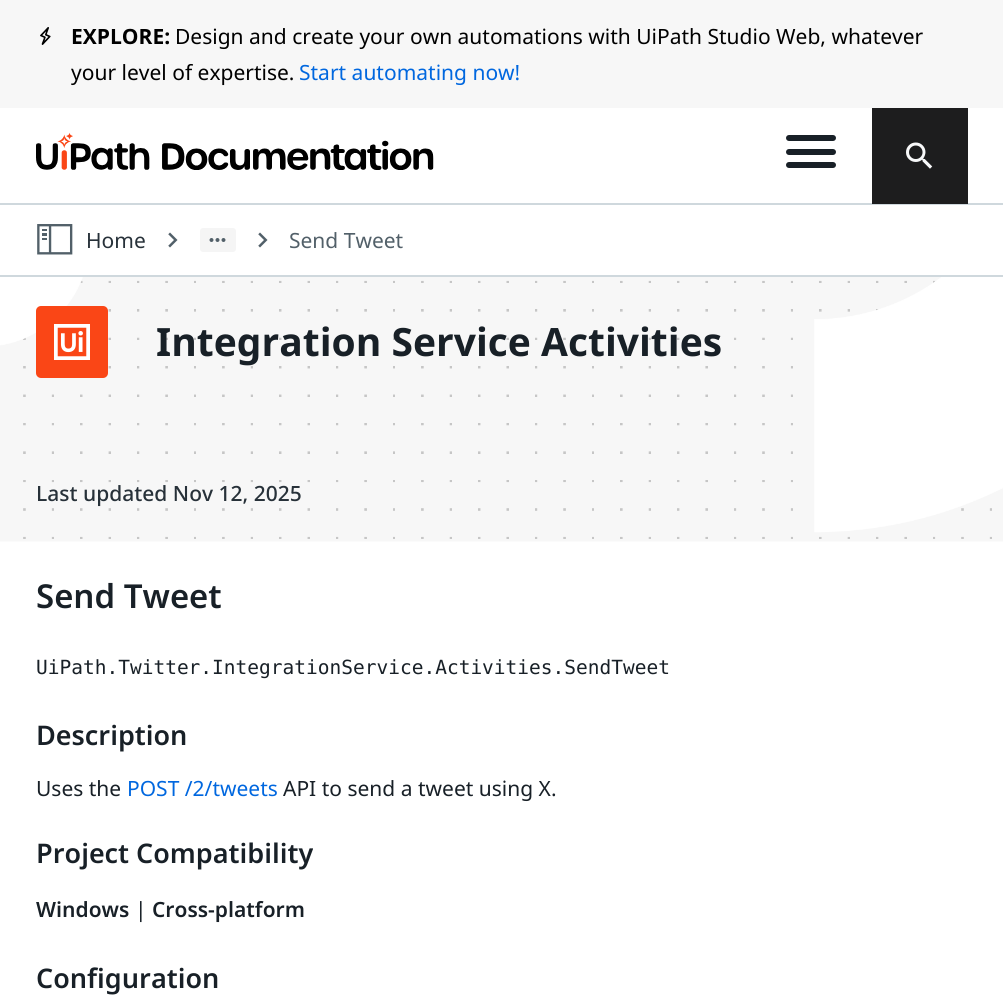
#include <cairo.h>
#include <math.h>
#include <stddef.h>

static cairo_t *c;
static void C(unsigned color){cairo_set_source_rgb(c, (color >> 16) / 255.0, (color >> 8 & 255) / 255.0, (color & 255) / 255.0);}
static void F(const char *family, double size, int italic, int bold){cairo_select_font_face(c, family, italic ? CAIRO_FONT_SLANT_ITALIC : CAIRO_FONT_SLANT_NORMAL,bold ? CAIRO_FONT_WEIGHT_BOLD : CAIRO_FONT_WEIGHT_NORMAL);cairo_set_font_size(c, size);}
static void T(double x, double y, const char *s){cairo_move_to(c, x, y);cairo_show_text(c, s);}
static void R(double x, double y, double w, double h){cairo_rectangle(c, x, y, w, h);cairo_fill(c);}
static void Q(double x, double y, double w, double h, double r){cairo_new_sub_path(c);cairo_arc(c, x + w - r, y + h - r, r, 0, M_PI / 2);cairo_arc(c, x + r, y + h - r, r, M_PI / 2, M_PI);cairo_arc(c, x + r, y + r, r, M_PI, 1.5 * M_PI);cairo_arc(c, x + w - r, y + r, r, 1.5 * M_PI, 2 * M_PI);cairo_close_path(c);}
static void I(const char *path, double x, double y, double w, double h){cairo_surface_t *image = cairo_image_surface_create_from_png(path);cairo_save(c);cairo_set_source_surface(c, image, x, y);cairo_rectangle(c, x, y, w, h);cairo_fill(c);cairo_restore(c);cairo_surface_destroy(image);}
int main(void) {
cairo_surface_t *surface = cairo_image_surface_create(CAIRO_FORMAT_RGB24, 1003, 1003);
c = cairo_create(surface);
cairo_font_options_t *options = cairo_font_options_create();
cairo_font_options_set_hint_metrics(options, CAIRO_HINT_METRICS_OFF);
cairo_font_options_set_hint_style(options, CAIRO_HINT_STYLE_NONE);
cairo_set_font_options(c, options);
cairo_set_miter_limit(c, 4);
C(0xffffff);
cairo_paint(c);
C(0xf7f7f7);
R(0,0,1003,108);
I("1.png",40,27,11,18);
F("Noto Sans",21,0,1);
C(0x000000);
T(71,44,"EXPLORE:");
F("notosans",21,0,0);
T(175,44,"Design and create your own automations with UiPath Studio Web, whatever");
T(71,80,"your level of expertise.");
C(0x0067df);
T(299,80,"Start automating now!");
C(0xcfd8dd);
R(0,203,1003,2);
I("2.png",36,132,398,38);
C(0x182027);
Q(786,135,50,6,3);
cairo_fill(c);
Q(786,149,50,6,3);
cairo_fill(c);
Q(786,162,50,6,3);
cairo_fill(c);
C(0x1d1d1e);
R(872,108,96,96);
I("3.png",906,142,27,27);
C(0xcfd8dd);
R(0,275,1003,2);
I("4.png",37,224,36,31);
C(0x273139);
T(86,248,"Home");
I("5.png",168,232,10,16);
C(0xf5f5f5);
Q(200,228,36,24,3);
cairo_fill(c);
I("6.png",209,238,17,4);
I("5.png",258,232,10,16);
C(0x526069);
T(289,248,"Send Tweet");
I("7.png",0,277,1003,265);
C(0xfa4616);
Q(36,306,72,72,5);
cairo_fill(c);
I("8.png",54,324,36,36);
F("Noto Sans",39,0,1);
C(0x182027);
T(156,356,"Integration Service Activities");
F("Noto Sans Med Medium",21,0,0);
C(0x273139);
T(36,501,"Last updated Nov 12, 2025");
F("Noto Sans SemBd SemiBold",33,0,0);
C(0x182027);
T(36,608,"Send Tweet");
F("DejaVu Sans Mono",19.5,0,0);
T(36,674,"UiPath.Twitter.IntegrationService.Activities.SendTweet");
F("Noto Sans SemBd SemiBold",27,0,0);
T(36,745,"Description");
F("notosans",21,0,0);
T(36,796,"Uses the");
C(0x0067df);
T(127,796,"POST /2/tweets");
C(0x182027);
T(283,796,"API to send a tweet using X.");
F("Noto Sans SemBd SemiBold",27,0,0);
T(36,863,"Project Compatibility");
F("Noto Sans SemBd SemiBold",21,0,0);
T(36,917,"Windows");
F("notosans",21,0,0);
T(135,917,"|");
F("Noto Sans SemBd SemiBold",21,0,0);
T(152,917,"Cross-platform");
F("Noto Sans SemBd SemiBold",27,0,0);
T(36,988,"Configuration");
cairo_surface_write_to_png(surface, "o.png");
cairo_font_options_destroy(options);
cairo_destroy(c);
cairo_surface_destroy(surface);
return 0;
}
